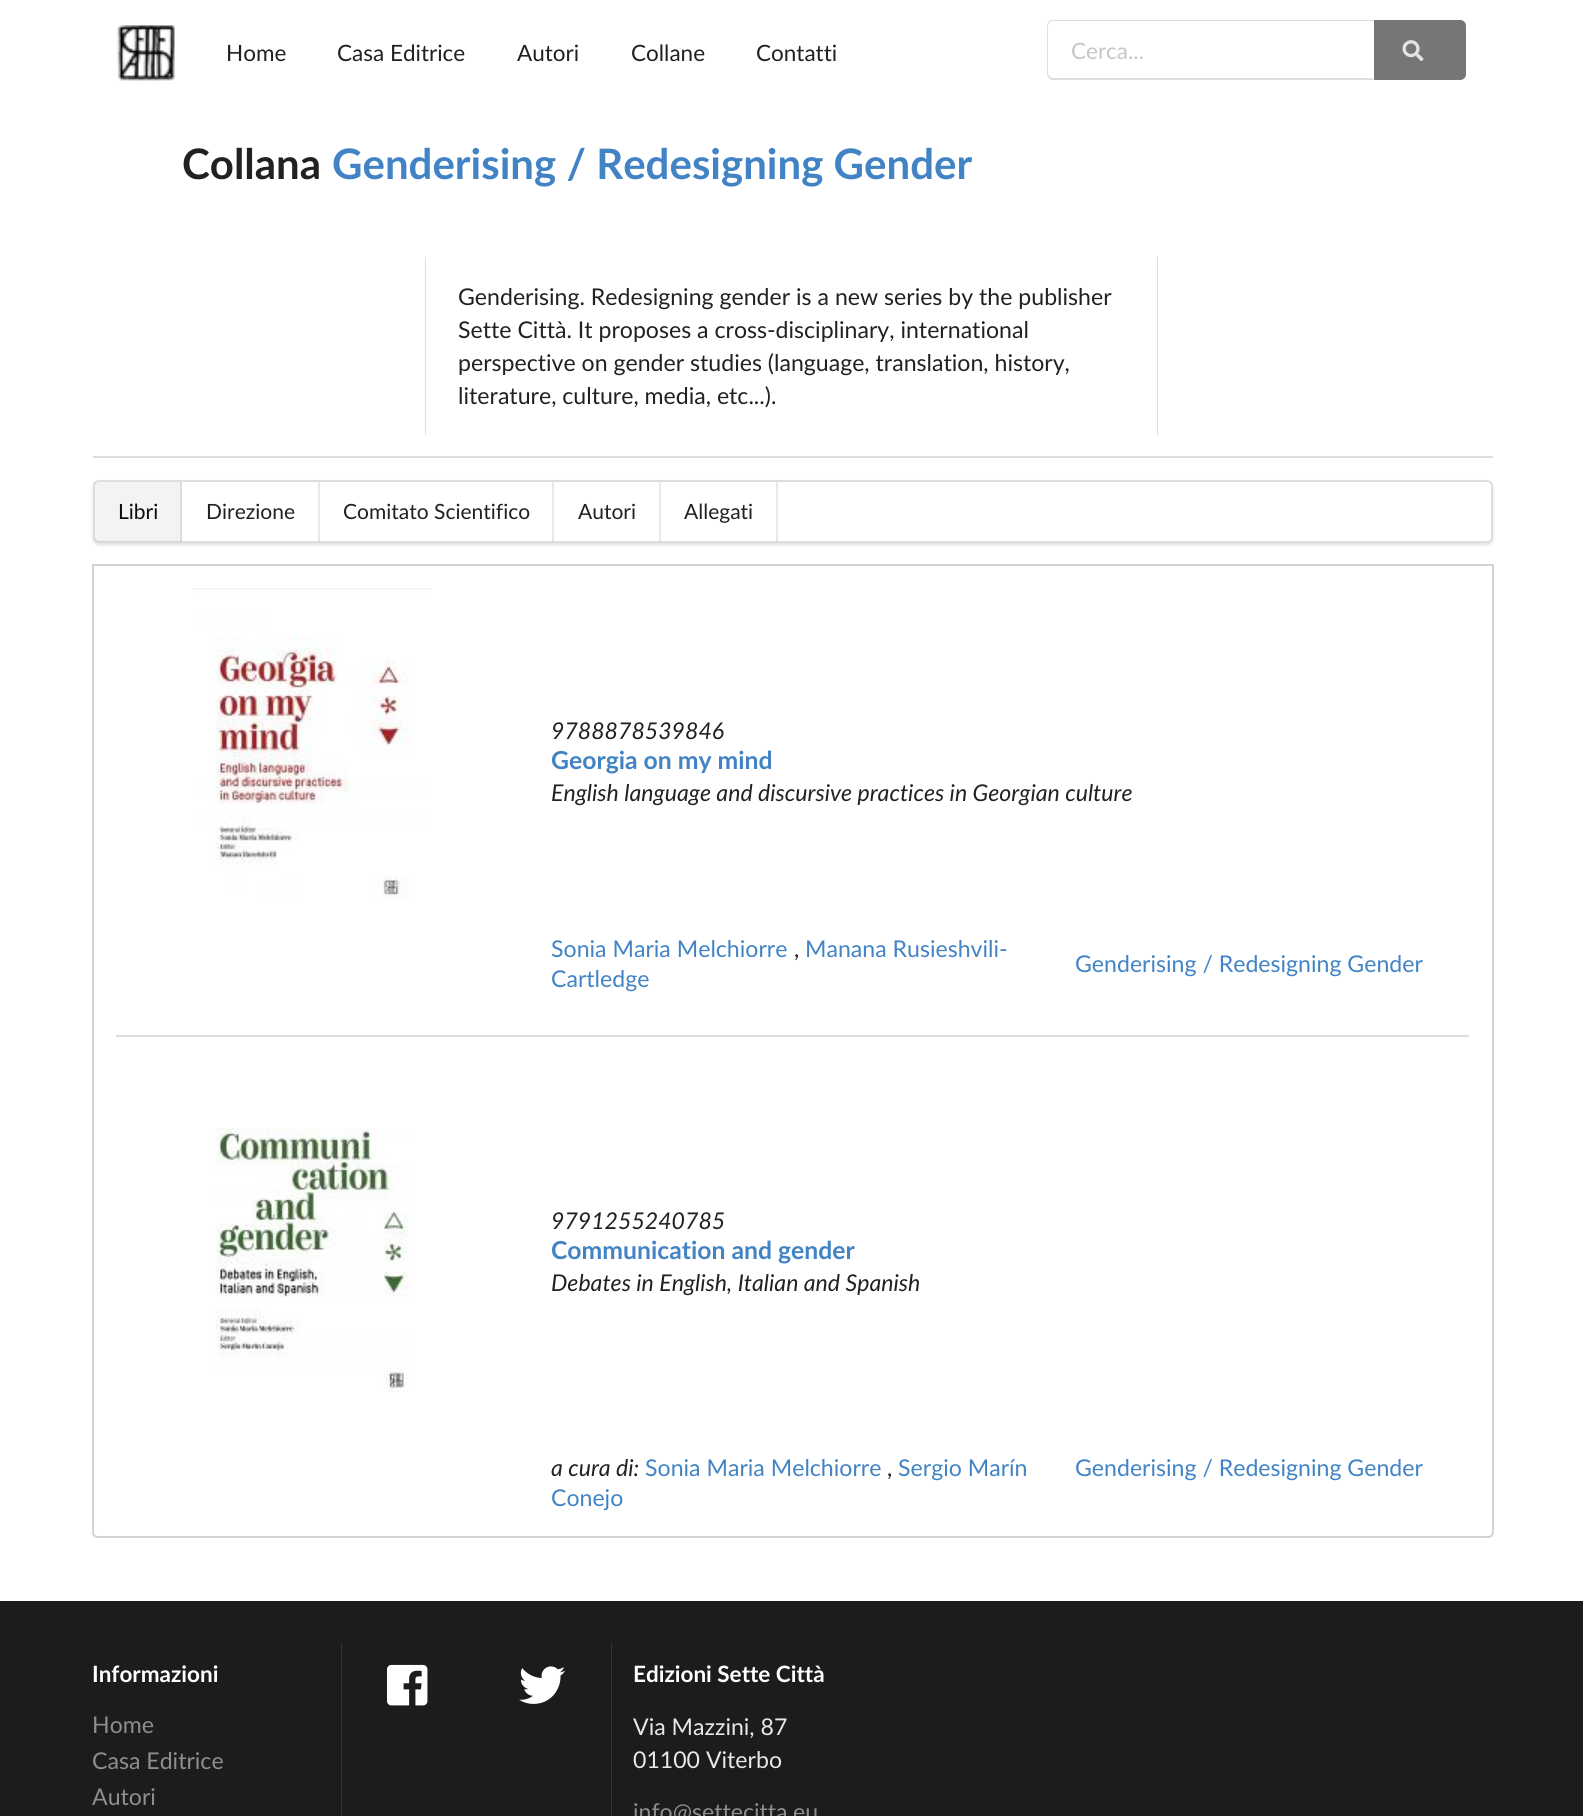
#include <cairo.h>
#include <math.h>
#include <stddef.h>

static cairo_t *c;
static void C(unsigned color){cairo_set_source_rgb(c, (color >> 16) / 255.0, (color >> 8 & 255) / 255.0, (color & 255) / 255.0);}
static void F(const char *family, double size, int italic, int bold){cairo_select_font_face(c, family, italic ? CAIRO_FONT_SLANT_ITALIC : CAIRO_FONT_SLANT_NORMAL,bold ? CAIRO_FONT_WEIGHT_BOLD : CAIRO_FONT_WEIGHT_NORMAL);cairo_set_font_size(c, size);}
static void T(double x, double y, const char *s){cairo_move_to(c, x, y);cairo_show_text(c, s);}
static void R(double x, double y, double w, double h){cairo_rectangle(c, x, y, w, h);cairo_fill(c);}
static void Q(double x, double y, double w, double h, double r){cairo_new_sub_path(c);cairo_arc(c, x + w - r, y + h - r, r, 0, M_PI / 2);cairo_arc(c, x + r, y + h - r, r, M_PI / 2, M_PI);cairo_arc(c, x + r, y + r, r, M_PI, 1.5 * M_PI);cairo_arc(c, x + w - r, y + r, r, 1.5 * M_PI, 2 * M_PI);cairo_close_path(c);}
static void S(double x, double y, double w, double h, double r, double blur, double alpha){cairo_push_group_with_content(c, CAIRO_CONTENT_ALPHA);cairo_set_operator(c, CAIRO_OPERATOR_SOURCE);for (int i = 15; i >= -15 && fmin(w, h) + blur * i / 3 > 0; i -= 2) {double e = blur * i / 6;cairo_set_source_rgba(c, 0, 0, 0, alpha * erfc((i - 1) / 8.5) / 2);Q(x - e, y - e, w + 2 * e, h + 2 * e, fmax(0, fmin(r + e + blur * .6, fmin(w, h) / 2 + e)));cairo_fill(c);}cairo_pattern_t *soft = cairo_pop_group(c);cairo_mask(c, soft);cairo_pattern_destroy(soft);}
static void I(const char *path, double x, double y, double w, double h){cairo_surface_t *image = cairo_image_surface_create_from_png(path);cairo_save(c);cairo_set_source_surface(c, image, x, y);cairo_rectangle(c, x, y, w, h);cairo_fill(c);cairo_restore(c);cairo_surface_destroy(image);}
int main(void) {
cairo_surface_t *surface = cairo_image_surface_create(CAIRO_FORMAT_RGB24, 1583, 1816);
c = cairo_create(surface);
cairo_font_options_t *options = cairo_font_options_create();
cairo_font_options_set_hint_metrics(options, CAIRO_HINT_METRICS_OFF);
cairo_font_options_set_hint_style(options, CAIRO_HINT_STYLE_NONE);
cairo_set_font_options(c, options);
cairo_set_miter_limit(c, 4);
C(0xffffff);
cairo_paint(c);
I("1.png",117,25,58,56);
F("Lato",22.5,0,0);
C(0x212121);
T(226,61,"Home");
T(337,61,"Casa Editrice");
T(517,61,"Autori");
T(631,61,"Collane");
T(756,61,"Contatti");
C(0xdedede);
cairo_new_path(c);
cairo_move_to(c,1053,20);
cairo_curve_to(c,1052,20,1050,20,1049,21);
cairo_line_to(c,1050,22);
cairo_line_to(c,1053,21);
cairo_line_to(c,1372,21);
cairo_line_to(c,1372,22);
cairo_line_to(c,1374,20);
cairo_close_path(c);
cairo_fill(c);
cairo_new_path(c);
cairo_move_to(c,1374,80);
cairo_line_to(c,1051,80);
cairo_line_to(c,1049,78);
cairo_line_to(c,1050,77);
cairo_line_to(c,1053,78);
cairo_line_to(c,1372,78);
cairo_close_path(c);
cairo_fill(c);
cairo_set_source_rgba(c,0.133,0.141,0.149,0.15);
cairo_new_path(c);
cairo_move_to(c,1047,26);
cairo_line_to(c,1047,74);
cairo_curve_to(c,1047,75,1048,77,1049,78);
cairo_line_to(c,1050,77);
cairo_line_to(c,1048,74);
cairo_line_to(c,1048,25);
cairo_line_to(c,1050,22);
cairo_line_to(c,1049,21);
cairo_curve_to(c,1048,22,1047,24,1047,26);
cairo_close_path(c);
cairo_fill(c);
C(0xc7c7c7);
T(1071,59,"Cerca...");
C(0x767676);
cairo_new_path(c);
cairo_move_to(c,1374,20);
cairo_line_to(c,1460,20);
cairo_curve_to(c,1463.5,20,1466,22.5,1466,26);
cairo_line_to(c,1466,74);
cairo_curve_to(c,1466,77.5,1463.5,80,1460,80);
cairo_line_to(c,1374,80);
cairo_close_path(c);
cairo_fill(c);
I("2.png",1402,40,22,22);
F("Lato",42,0,1);
C(0x212121);
T(182,179,"Collana");
C(0x4183c4);
T(332,179,"Genderising / Redesigning Gender");
C(0xdedede);
R(425,257,1,178);
F("Lato",23.1,0,0);
C(0x212121);
T(458,305,"Genderising. Redesigning gender is a new series by the publisher");
T(458,338,"Sette Città. It proposes a cross-disciplinary, international");
T(458,371,"perspective on gender studies (language, translation, history,");
T(458,404,"literature, culture, media, etc...).");
C(0xdedede);
R(1157,257,1,178);
R(93,456,1400,2);
C(0x222426);
S(93,482,1400,63,6,1.5,.15);
C(0xffffff);
Q(93,480,1400,63,6);
cairo_fill(c);
Q(94,481,1398,61,5);
cairo_set_source_rgba(c,0.133,0.141,0.149,0.15);
cairo_stroke(c);
cairo_set_source_rgba(c,0,0,0,0.05);
R(95,482,87,60);
F("Lato",21,0,0);
C(0x0c0c0c);
T(118,519,"Libri");
cairo_set_source_rgba(c,0.133,0.141,0.149,0.1);
R(180,482,2,60);
C(0x212121);
T(206,519,"Direzione");
cairo_set_source_rgba(c,0.133,0.141,0.149,0.1);
R(318,482,2,60);
C(0x212121);
T(343,519,"Comitato Scientifico");
cairo_set_source_rgba(c,0.133,0.141,0.149,0.1);
R(552,482,2,60);
C(0x212121);
T(578,519,"Autori");
cairo_set_source_rgba(c,0.133,0.141,0.149,0.1);
R(659,482,2,60);
C(0x212121);
T(684,519,"Allegati");
cairo_set_source_rgba(c,0.133,0.141,0.149,0.1);
R(776,482,2,60);
cairo_new_path(c);
cairo_move_to(c,93,565);
cairo_line_to(c,1493,565);
cairo_line_to(c,1493,1532);
cairo_curve_to(c,1493,1535,1491,1537,1488,1537);
cairo_line_to(c,98,1537);
cairo_curve_to(c,95,1537,93,1535,93,1532);
cairo_close_path(c);
C(0xd4d4d5);
cairo_stroke(c);
I("3.png",192,588,240,312);
F("Lato",23.1,1,0);
C(0x212121);
T(551,739,"9788878539846");
F("Lato",24.75,0,1);
C(0x4183c4);
T(551,769,"Georgia on my mind");
F("Lato",23.1,1,0);
C(0x212121);
T(551,801,"English language and discursive practices in Georgian culture");
F("Lato",23.1,0,0);
C(0x4183c4);
T(551,957,"Sonia Maria Melchiorre");
C(0x212121);
T(794,957,",");
C(0x4183c4);
T(805,957,"Manana Rusieshvili-");
T(551,987,"Cartledge");
T(1075,972,"Genderising / Redesigning Gender");
C(0xdedede);
R(116,1035,1353,2);
I("4.png",215,1128,194,264);
F("Lato",23.1,1,0);
C(0x212121);
T(551,1229,"9791255240785");
F("Lato",24.75,0,1);
C(0x4183c4);
T(551,1259,"Communication and gender");
F("Lato",23.1,1,0);
C(0x212121);
T(551,1291,"Debates in English, Italian and Spanish");
T(551,1476,"a cura di:");
F("Lato",23.1,0,0);
C(0x4183c4);
T(645,1476,"Sonia Maria Melchiorre");
C(0x212121);
T(887,1476,",");
C(0x4183c4);
T(898,1476,"Sergio Marín");
T(551,1506,"Conejo");
T(1075,1476,"Genderising / Redesigning Gender");
C(0x1b1c1d);
R(0,1601,1583,215);
F("Lato",22.5,0,1);
C(0xffffff);
T(92,1682,"Informazioni");
F("Lato",23.1,0,0);
C(0x8d8e8e);
T(92,1733,"Home");
T(92,1769,"Casa Editrice");
T(92,1805,"Autori");
C(0x323334);
cairo_new_path(c);
cairo_move_to(c,341,1643);
cairo_line_to(c,341,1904);
cairo_line_to(c,611,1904);
cairo_line_to(c,342,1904);
cairo_line_to(c,342,1643);
cairo_close_path(c);
cairo_fill(c);
I("5.png",387,1664,41,42);
I("6.png",519,1666,46,38);
cairo_new_path(c);
cairo_move_to(c,611,1643);
cairo_line_to(c,611,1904);
cairo_line_to(c,1241,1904);
cairo_line_to(c,612,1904);
cairo_line_to(c,612,1643);
cairo_close_path(c);
cairo_fill(c);
F("Lato",22.5,0,1);
C(0xffffff);
T(633,1682,"Edizioni Sette Città");
F("Lato",23.1,0,0);
C(0xe8e8e8);
T(633,1735,"Via Mazzini, 87");
T(633,1768,"01100 Viterbo");
C(0x8d8e8e);
T(633,1820,"info@settecitta.eu");
cairo_surface_write_to_png(surface, "o.png");
cairo_font_options_destroy(options);
cairo_destroy(c);
cairo_surface_destroy(surface);
return 0;
}
